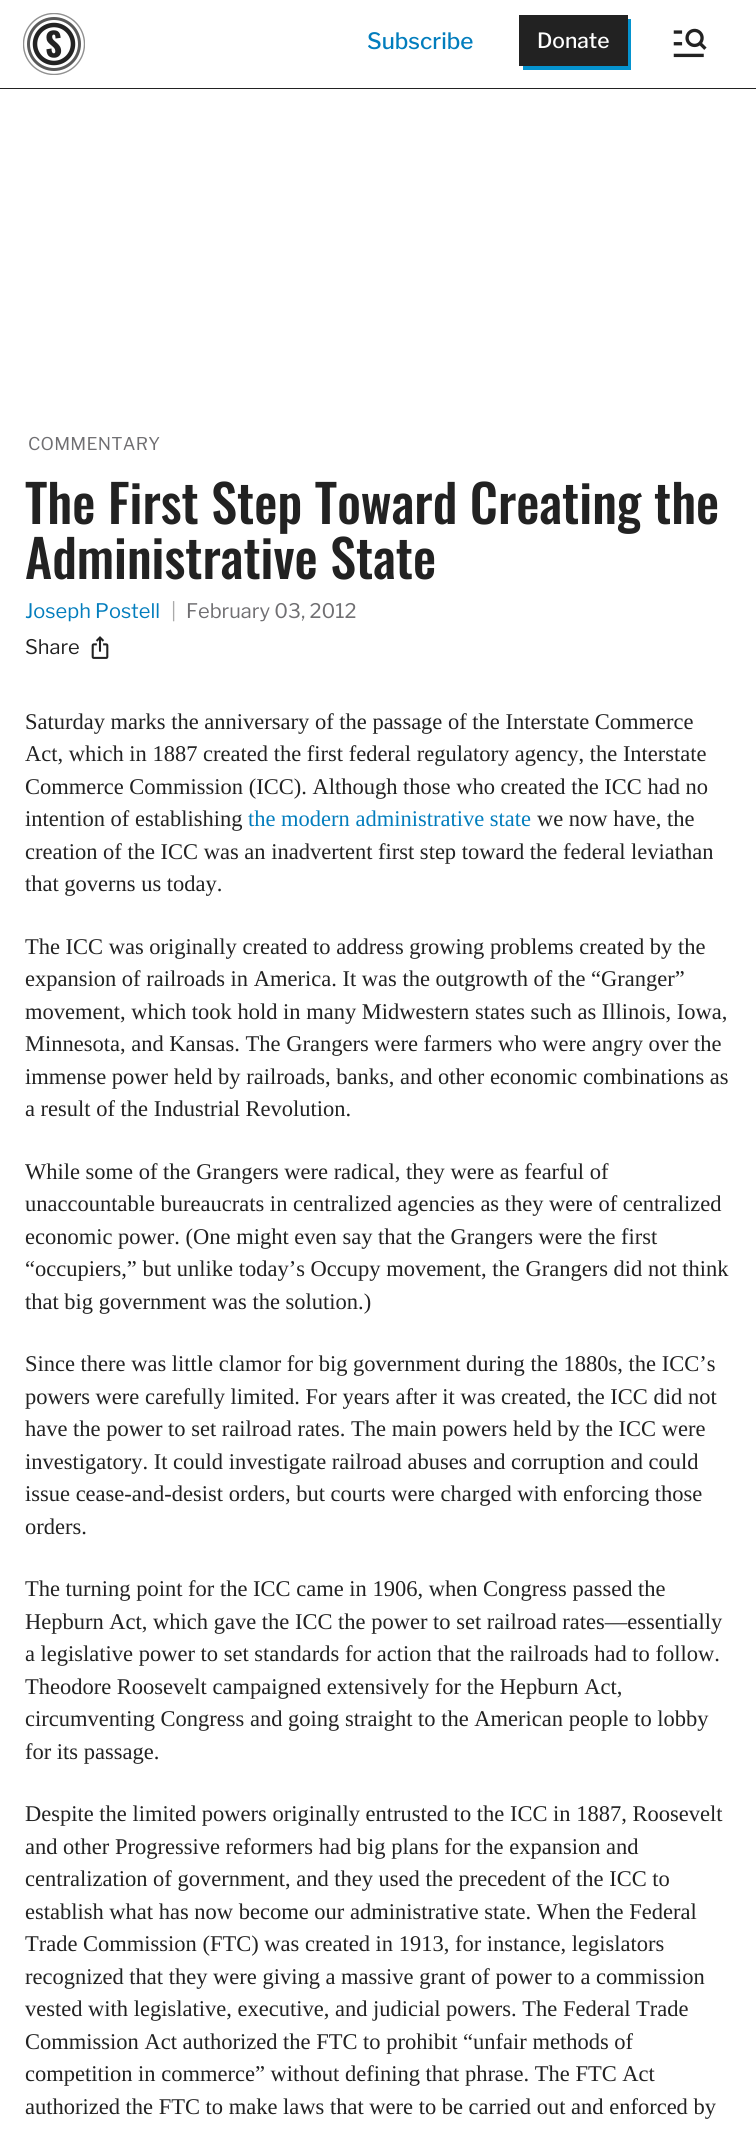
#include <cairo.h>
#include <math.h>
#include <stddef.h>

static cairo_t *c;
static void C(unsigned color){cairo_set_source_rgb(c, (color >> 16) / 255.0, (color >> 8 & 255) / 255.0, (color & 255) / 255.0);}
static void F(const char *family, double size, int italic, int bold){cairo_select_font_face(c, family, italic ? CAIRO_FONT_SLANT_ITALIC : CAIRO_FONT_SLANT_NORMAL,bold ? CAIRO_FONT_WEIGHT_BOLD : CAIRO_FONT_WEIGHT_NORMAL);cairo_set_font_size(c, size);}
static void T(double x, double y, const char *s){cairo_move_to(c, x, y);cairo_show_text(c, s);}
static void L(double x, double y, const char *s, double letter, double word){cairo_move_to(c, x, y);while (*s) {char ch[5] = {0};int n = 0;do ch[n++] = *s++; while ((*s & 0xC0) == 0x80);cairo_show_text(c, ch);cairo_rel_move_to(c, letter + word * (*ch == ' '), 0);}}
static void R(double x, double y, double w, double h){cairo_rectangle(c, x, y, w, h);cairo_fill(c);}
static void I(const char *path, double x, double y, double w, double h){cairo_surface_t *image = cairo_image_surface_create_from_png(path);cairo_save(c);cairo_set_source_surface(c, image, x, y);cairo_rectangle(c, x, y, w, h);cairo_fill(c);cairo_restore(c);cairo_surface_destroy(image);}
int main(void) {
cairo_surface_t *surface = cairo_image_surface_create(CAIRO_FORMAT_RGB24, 756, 2132);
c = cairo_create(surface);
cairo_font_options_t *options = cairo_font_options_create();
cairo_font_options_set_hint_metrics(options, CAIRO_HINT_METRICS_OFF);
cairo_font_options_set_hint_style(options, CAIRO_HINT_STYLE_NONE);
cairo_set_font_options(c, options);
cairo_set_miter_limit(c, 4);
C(0xffffff);
cairo_paint(c);
C(0x222222);
R(0,88,756,1);
I("1.png",23,13,62,62);
F("Libre Franklin Medium",22.5,0,0);
C(0x027dbd);
T(367,49,"Subscribe");
C(0x0593cf);
cairo_new_path(c);
cairo_move_to(c,523,66);
cairo_line_to(c,523,70);
cairo_line_to(c,631,70);
cairo_line_to(c,631,19);
cairo_line_to(c,628,19);
cairo_line_to(c,628,66);
cairo_close_path(c);
cairo_fill(c);
C(0x222222);
R(519,15,109,51);
F("Libre Franklin Medium",21,0,0);
C(0xffffff);
T(537,48,"Donate");
I("2.png",673,28,34,30);
F("Libre Franklin",17.5,0,0);
C(0x706f72);
L(28,450,"COMMENTARY",.25,0);
F("Oswald Medium",52,0,0);
C(0x222222);
T(25,524,"The First Step Toward Creating the");
T(25,579,"Administrative State");
F("Libre Franklin",20,0,0);
C(0x027dbd);
T(25,618,"Joseph Postell");
C(0xaaaaaa);
T(171,618,"|");
C(0x706f72);
T(186,618,"February 03, 2012");
C(0x222222);
T(25,654,"Share");
I("3.png",91,636,18,23);
F("Liberation Serif",22.5,0,0);
T(25,729,"Saturday marks the anniversary of the passage of the Interstate Commerce");
T(25,761,"Act, which in 1887 created the first federal regulatory agency, the Interstate");
T(25,794,"Commerce Commission (ICC). Although those who created the ICC had no");
T(25,826,"intention of establishing");
C(0x027dbd);
T(248,826,"the modern administrative state");
C(0x222222);
T(537,826,"we now have, the");
T(25,859,"creation of the ICC was an inadvertent first step toward the federal leviathan");
T(25,891,"that governs us today.");
T(25,954,"The ICC was originally created to address growing problems created by the");
T(25,986,"expansion of railroads in America. It was the outgrowth of the “Granger”");
T(25,1019,"movement, which took hold in many Midwestern states such as Illinois, Iowa,");
T(25,1051,"Minnesota, and Kansas. The Grangers were farmers who were angry over the");
T(25,1084,"immense power held by railroads, banks, and other economic combinations as");
T(25,1116,"a result of the Industrial Revolution.");
T(25,1179,"While some of the Grangers were radical, they were as fearful of");
T(25,1211,"unaccountable bureaucrats in centralized agencies as they were of centralized");
T(25,1244,"economic power. (One might even say that the Grangers were the first");
T(25,1276,"“occupiers,” but unlike today’s Occupy movement, the Grangers did not think");
T(25,1309,"that big government was the solution.)");
T(25,1371,"Since there was little clamor for big government during the 1880s, the ICC’s");
T(25,1404,"powers were carefully limited. For years after it was created, the ICC did not");
T(25,1436,"have the power to set railroad rates. The main powers held by the ICC were");
T(25,1469,"investigatory. It could investigate railroad abuses and corruption and could");
T(25,1501,"issue cease-and-desist orders, but courts were charged with enforcing those");
T(25,1534,"orders.");
T(25,1596,"The turning point for the ICC came in 1906, when Congress passed the");
T(25,1629,"Hepburn Act, which gave the ICC the power to set railroad rates—essentially");
T(25,1661,"a legislative power to set standards for action that the railroads had to follow.");
T(25,1694,"Theodore Roosevelt campaigned extensively for the Hepburn Act,");
T(25,1726,"circumventing Congress and going straight to the American people to lobby");
T(25,1759,"for its passage.");
T(25,1821,"Despite the limited powers originally entrusted to the ICC in 1887, Roosevelt");
T(25,1854,"and other Progressive reformers had big plans for the expansion and");
T(25,1886,"centralization of government, and they used the precedent of the ICC to");
T(25,1919,"establish what has now become our administrative state. When the Federal");
T(25,1951,"Trade Commission (FTC) was created in 1913, for instance, legislators");
T(25,1984,"recognized that they were giving a massive grant of power to a commission");
T(25,2016,"vested with legislative, executive, and judicial powers. The Federal Trade");
T(25,2049,"Commission Act authorized the FTC to prohibit “unfair methods of");
T(25,2081,"competition in commerce” without defining that phrase. The FTC Act");
T(25,2114,"authorized the FTC to make laws that were to be carried out and enforced by");
cairo_surface_write_to_png(surface, "o.png");
cairo_font_options_destroy(options);
cairo_destroy(c);
cairo_surface_destroy(surface);
return 0;
}
